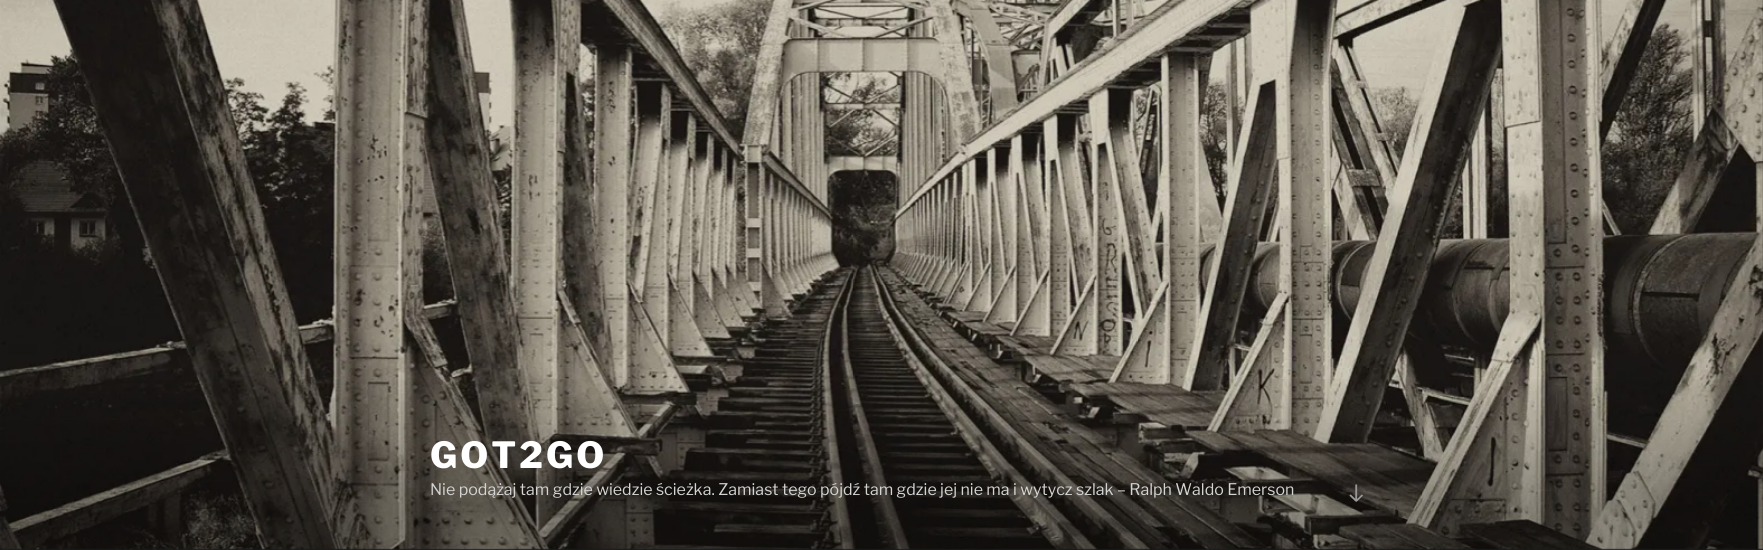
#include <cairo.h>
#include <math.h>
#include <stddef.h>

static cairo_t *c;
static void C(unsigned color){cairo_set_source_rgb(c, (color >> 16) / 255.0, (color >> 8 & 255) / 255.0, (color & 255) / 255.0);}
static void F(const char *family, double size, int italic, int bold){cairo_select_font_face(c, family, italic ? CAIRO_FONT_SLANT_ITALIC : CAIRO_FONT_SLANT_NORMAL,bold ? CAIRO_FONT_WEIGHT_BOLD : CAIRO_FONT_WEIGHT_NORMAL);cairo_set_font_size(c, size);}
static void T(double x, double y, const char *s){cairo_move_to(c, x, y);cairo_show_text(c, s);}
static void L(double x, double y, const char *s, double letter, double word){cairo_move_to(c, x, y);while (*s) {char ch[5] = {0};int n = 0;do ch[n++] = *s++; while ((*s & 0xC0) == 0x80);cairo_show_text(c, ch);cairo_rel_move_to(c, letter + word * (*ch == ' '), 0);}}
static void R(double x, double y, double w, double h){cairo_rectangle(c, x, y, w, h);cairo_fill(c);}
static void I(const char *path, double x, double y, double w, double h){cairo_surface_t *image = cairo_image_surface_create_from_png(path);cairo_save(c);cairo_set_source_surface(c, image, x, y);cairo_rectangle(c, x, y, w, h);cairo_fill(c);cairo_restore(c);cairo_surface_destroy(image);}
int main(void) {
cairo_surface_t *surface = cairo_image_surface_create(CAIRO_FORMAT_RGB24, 1763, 550);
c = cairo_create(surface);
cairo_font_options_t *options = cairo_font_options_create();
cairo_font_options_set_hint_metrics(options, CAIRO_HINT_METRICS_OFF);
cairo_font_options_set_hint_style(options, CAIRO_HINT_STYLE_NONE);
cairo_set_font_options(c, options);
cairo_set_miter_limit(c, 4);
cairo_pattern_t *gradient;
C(0x262626);
cairo_paint(c);
I("1.png",0,0,1763,550);
gradient = cairo_pattern_create_linear(882,369,882,550);
cairo_pattern_add_color_stop_rgba(gradient,0,0,0,0,0);
cairo_pattern_add_color_stop_rgba(gradient,.75,0,0,0,.3);
cairo_pattern_add_color_stop_rgba(gradient,1,0,0,0,.3);
cairo_set_source(c,gradient);
cairo_pattern_destroy(gradient);
R(0,379,1763,171);
F("Libre Franklin Thin",36,0,0);
C(0xffffff);
L(430,468,"GOT2GO",3,0);
F("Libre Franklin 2 Thin",16,0,0);
C(0xd4d4d3);
T(430,495,"Nie podążaj tam gdzie wiedzie ścieżka. Zamiast tego pójdź tam gdzie jej nie ma i wytycz szlak – Ralph Waldo Emerson");
I("2.png",1349,484,14,18);
cairo_surface_write_to_png(surface, "o.png");
cairo_font_options_destroy(options);
cairo_destroy(c);
cairo_surface_destroy(surface);
return 0;
}
